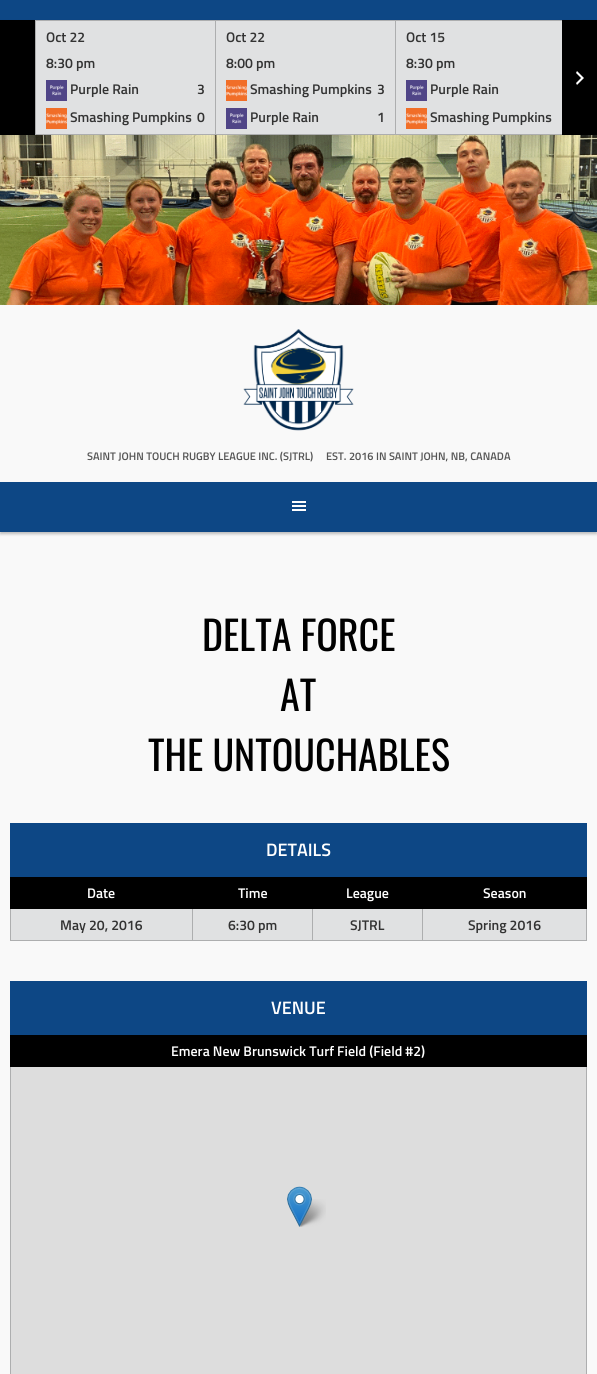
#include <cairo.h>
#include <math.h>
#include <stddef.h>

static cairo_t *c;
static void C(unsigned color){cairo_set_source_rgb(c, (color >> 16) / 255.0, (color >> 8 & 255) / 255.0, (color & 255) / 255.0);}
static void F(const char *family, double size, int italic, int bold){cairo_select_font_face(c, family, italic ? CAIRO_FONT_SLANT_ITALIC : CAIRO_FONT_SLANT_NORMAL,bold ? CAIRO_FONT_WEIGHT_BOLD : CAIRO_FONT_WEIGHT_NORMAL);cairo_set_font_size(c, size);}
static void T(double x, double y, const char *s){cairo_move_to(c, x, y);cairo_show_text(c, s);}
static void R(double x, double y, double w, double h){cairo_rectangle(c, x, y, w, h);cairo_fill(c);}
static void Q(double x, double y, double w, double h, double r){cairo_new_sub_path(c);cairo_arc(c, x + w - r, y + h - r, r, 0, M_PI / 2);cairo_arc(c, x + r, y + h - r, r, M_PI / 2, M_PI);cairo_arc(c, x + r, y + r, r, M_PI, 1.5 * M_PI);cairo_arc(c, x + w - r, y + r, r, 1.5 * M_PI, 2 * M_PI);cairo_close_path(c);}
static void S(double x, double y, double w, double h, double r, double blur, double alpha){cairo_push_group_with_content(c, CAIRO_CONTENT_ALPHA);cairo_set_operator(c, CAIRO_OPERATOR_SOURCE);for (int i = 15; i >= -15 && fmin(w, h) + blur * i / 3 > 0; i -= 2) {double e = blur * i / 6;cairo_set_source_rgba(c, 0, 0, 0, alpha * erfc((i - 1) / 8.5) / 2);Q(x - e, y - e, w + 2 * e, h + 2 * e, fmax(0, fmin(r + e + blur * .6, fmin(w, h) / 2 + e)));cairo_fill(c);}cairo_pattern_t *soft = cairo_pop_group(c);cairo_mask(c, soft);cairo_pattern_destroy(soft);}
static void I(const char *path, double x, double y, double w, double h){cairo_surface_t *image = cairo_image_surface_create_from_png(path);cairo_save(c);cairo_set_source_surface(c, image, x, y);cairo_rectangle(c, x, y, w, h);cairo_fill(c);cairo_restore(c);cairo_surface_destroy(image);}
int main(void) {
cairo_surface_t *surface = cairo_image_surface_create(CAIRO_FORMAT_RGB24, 597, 1374);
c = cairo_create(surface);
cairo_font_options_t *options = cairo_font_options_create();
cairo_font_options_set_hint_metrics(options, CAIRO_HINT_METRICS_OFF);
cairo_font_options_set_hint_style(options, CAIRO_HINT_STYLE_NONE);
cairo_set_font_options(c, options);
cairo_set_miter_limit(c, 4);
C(0xf9f9f9);
cairo_paint(c);
C(0x0d4785);
R(0,0,597,20);
C(0x000000);
S(0,22,597,512,0,1.5,.25);
C(0xf9f9f9);
R(0,305,597,177);
C(0x000000);
R(0,20,597,115);
C(0xadaeaf);
R(35,20,527,1);
R(35,134,527,1);
R(35,20,1,115);
C(0xe0e1e2);
R(36,21,526,113);
F("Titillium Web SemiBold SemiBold",14,0,0);
C(0x333333);
T(46,42,"Oct 22");
T(46,68,"8:30 pm");
I("1.png",46,80,21,21);
T(70,94,"Purple Rain");
T(197,94,"3");
I("2.png",46,108,21,21);
T(70,122,"Smashing Pumpkins");
T(197,122,"0");
C(0xadaeaf);
R(215,20,1,115);
C(0x333333);
T(226,42,"Oct 22");
T(226,68,"8:00 pm");
I("3.png",226,80,21,21);
T(250,94,"Smashing Pumpkins");
T(377,94,"3");
I("4.png",226,108,21,21);
T(250,122,"Purple Rain");
T(377,122,"1");
C(0xadaeaf);
R(395,20,1,115);
C(0x333333);
T(406,42,"Oct 15");
T(406,68,"8:30 pm");
I("4.png",406,80,21,21);
T(430,94,"Purple Rain");
I("3.png",406,108,21,21);
T(430,122,"Smashing Pumpkins");
I("5.png",576,71,8,14);
I("6.png",0,135,597,170);
I("7.png",243,329,111,102);
F("Titillium Web SemiBold SemiBold",11,0,0);
C(0x555555);
T(87,460,"SAINT JOHN TOUCH RUGBY LEAGUE INC. (SJTRL)");
T(326,460,"EST. 2016 IN SAINT JOHN, NB, CANADA");
C(0x0d4785);
R(0,482,597,50);
I("8.png",292,501,14,10);
F("Oswald",40,0,0);
C(0x000000);
T(202,651,"DELTA FORCE");
T(280,711,"AT");
T(148,771,"THE UNTOUCHABLES");
R(10,908,577,1);
C(0xadaeaf);
R(10,940,577,1);
R(10,908,1,33);
C(0x000000);
R(10,876,1,33);
R(11,877,575,31);
C(0xe0e1e2);
R(11,909,575,31);
C(0xadaeaf);
R(192,908,1,33);
C(0x000000);
R(192,876,1,33);
C(0xadaeaf);
R(312,908,1,33);
C(0x000000);
R(312,876,1,33);
C(0xadaeaf);
R(586,908,1,33);
C(0x000000);
R(586,876,1,33);
C(0xadaeaf);
R(422,908,1,33);
C(0x000000);
R(422,876,1,33);
C(0x0d4785);
R(10,823,577,54);
F("Titillium Web SemiBold SemiBold",18,0,0);
C(0xffffff);
T(266,856,"DETAILS");
F("Titillium Web SemiBold SemiBold",14,0,0);
T(87,898,"Date");
T(238,898,"Time");
T(346,898,"League");
T(483,898,"Season");
C(0x333333);
T(60,930,"May 20, 2016");
T(228,930,"6:30 pm");
T(350,930,"SJTRL");
T(468,930,"Spring 2016");
C(0x000000);
R(10,1066,577,1);
C(0xadaeaf);
R(586,1066,1,308);
C(0x000000);
R(586,1034,1,33);
C(0xadaeaf);
R(10,1066,1,308);
C(0x000000);
R(10,1034,1,33);
C(0x0d4785);
R(10,981,577,54);
F("Titillium Web SemiBold SemiBold",18,0,0);
C(0xffffff);
T(271,1014,"VENUE");
C(0x000000);
R(11,1035,575,31);
F("Titillium Web SemiBold SemiBold",14,0,0);
C(0xffffff);
T(171,1056,"Emera New Brunswick Turf Field (Field #2)");
C(0xdddddd);
R(11,1067,575,307);
I("10.png",297,1199,29,28);
I("9.png",287,1186,25,41);
cairo_surface_write_to_png(surface, "o.png");
cairo_font_options_destroy(options);
cairo_destroy(c);
cairo_surface_destroy(surface);
return 0;
}
